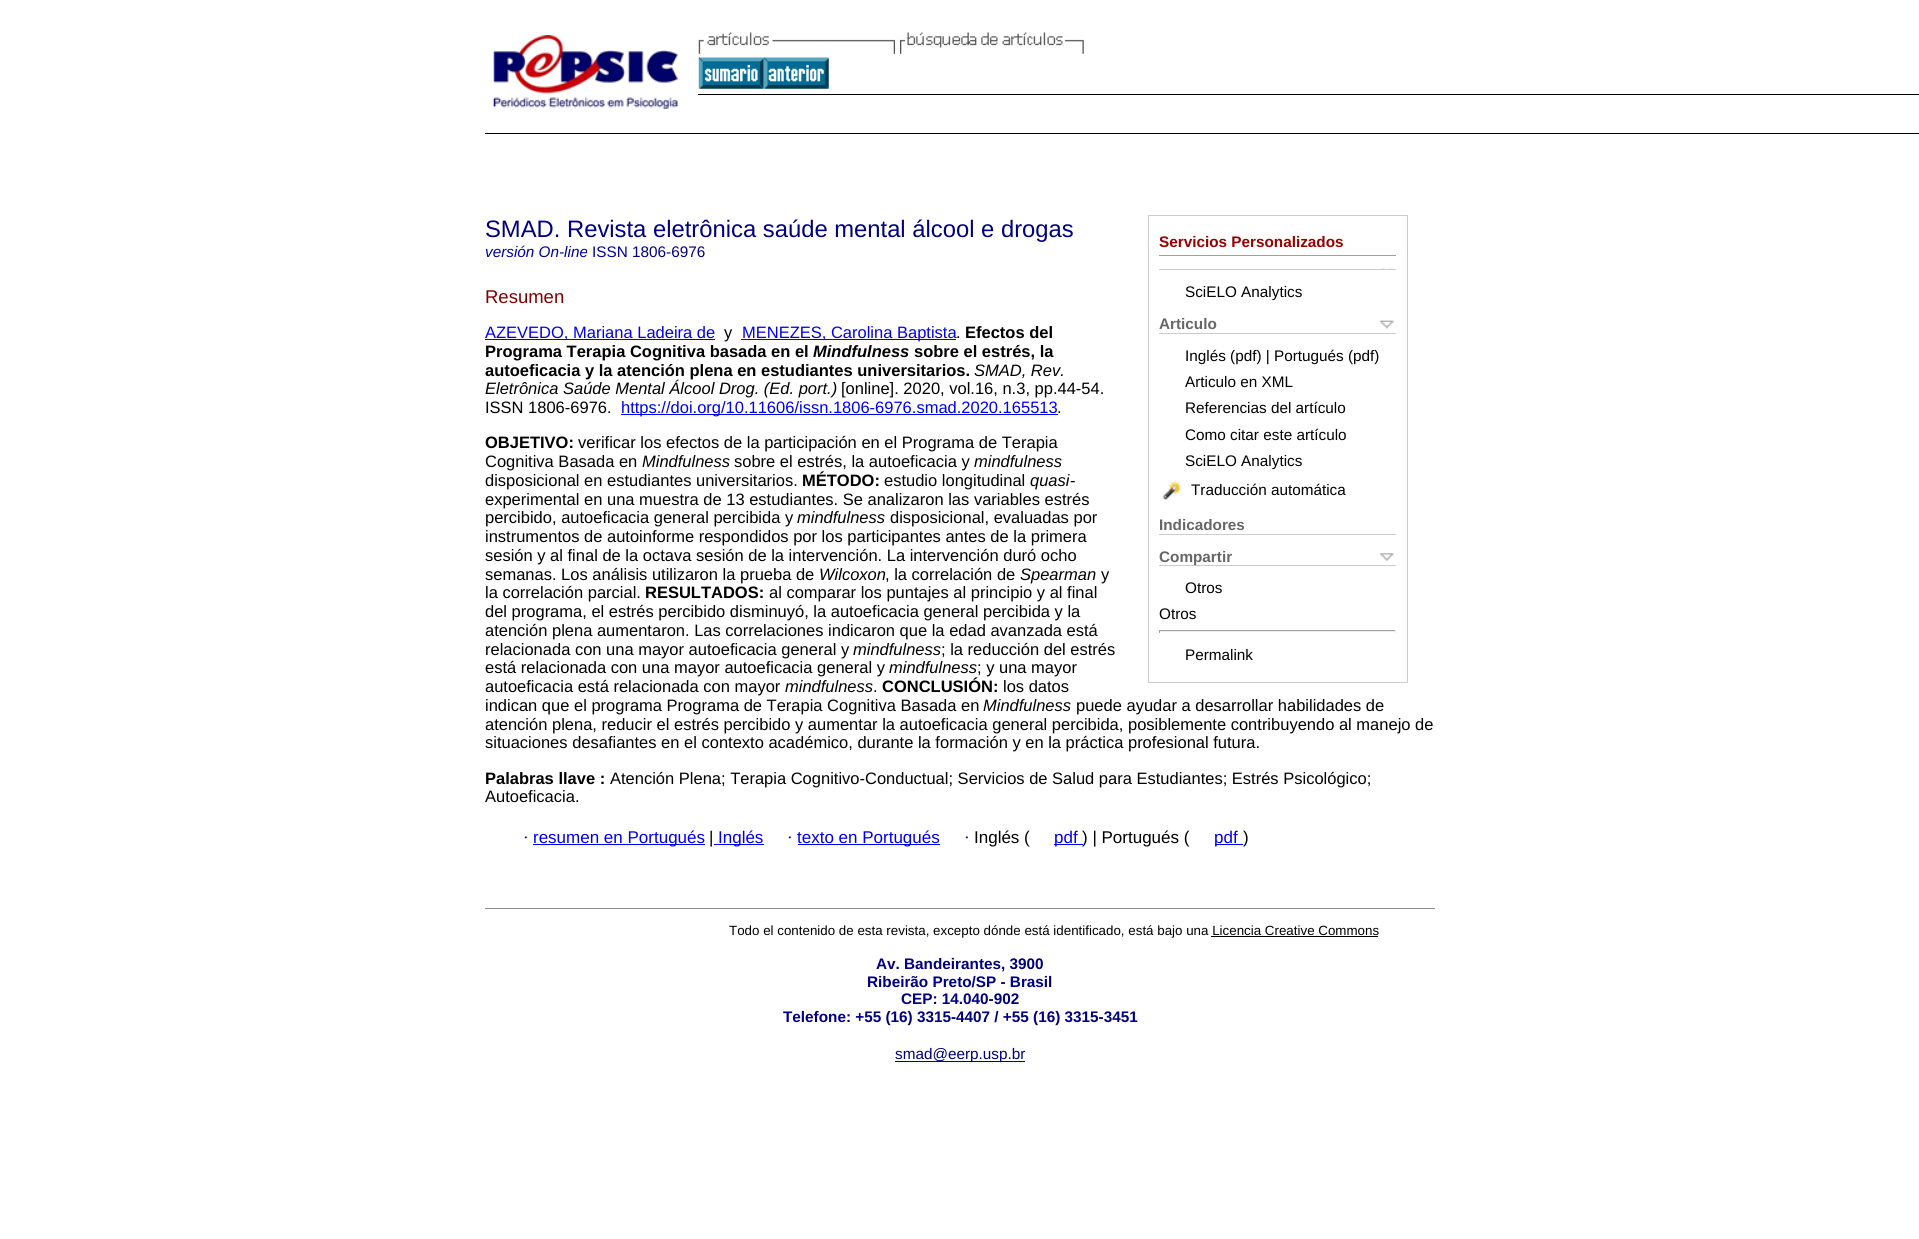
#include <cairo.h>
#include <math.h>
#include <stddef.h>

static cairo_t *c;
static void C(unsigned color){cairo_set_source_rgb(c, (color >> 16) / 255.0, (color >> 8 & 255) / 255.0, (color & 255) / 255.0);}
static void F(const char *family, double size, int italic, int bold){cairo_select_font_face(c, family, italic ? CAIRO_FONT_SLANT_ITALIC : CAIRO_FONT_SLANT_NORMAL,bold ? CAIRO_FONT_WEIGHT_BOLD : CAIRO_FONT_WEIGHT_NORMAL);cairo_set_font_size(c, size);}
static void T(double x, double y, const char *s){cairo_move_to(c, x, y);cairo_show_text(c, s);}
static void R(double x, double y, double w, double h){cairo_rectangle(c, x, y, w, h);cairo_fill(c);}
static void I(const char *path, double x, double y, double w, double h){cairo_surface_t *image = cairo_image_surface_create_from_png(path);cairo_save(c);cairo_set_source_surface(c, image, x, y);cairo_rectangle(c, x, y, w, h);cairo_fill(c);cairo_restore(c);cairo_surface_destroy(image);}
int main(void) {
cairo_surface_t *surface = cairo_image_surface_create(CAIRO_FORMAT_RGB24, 1919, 1239);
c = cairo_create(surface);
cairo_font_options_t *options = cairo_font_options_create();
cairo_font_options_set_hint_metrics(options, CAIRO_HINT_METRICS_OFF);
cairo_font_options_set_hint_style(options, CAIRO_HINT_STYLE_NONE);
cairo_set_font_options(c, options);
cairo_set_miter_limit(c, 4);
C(0xffffff);
cairo_paint(c);
C(0x000000);
R(485,133,1434,1);
I("1.png",493,35,185,74);
R(698,94,1221,1);
I("2.png",698,32,197,22);
I("3.png",900,32,184,22);
I("4.png",698,57,66,32);
I("5.png",763,57,66,32);
C(0x8d8d8d);
R(485,908,950,1);
F("Liberation Sans",23.8,0,0);
C(0x000080);
T(485,237,"SMAD. Revista eletrônica saúde mental álcool e drogas");
F("Liberation Sans",15.3,1,0);
C(0x0000a0);
T(485,257,"versión On-line");
F("Liberation Sans",15.3,0,0);
T(592,257,"ISSN");
C(0x000080);
T(632,257,"1806-6976");
cairo_rectangle(c,1148.5,215.5,259,467);
C(0xcccccc);
cairo_set_line_width(c,1);
cairo_stroke(c);
C(0xbe9595);
R(1159,255,237,1);
F("Liberation Sans",15.3,0,1);
C(0x990000);
T(1159,247,"Servicios Personalizados");
I("6.png",1381,268,11,1);
C(0xcccccc);
R(1159,269,237,1);
F("Liberation Sans",15.3,0,0);
C(0x000000);
T(1185,297,"SciELO Analytics");
I("7.png",1379,320,15,9);
C(0xcccccc);
R(1159,333,237,1);
F("Liberation Sans",15.3,0,1);
C(0x666666);
T(1159,329,"Articulo");
F("Liberation Sans",15.3,0,0);
C(0x000000);
T(1185,361,"Inglés (pdf) | Portugués (pdf)");
T(1185,387,"Articulo en XML");
T(1185,413,"Referencias del artículo");
T(1185,440,"Como citar este artículo");
T(1185,466,"SciELO Analytics");
I("8.png",1162,481,20,20);
T(1191,495,"Traducción automática");
C(0xcccccc);
R(1159,534,237,1);
F("Liberation Sans",15.3,0,1);
C(0x666666);
T(1159,530,"Indicadores");
I("9.png",1380,553,14,8);
C(0xcccccc);
R(1159,565,237,1);
C(0x666666);
T(1159,562,"Compartir");
F("Liberation Sans",15.3,0,0);
C(0x000000);
T(1185,593,"Otros");
T(1159,619,"Otros");
C(0x9f9f9f);
R(1159,630,237,1);
C(0xeeeeee);
R(1395,630,1,3);
R(1159,631,237,1);
C(0x9f9f9f);
R(1159,630,1,3);
C(0x000000);
T(1185,660,"Permalink");
F("Liberation Sans",18.5,0,0);
C(0x800000);
T(485,303,"Resumen");
C(0x0000ee);
R(485,339,230,1);
F("Liberation Sans",16.5,0,0);
T(485,338,"AZEVEDO, Mariana Ladeira de");
C(0x000000);
T(724,338,"y");
C(0x0000ee);
R(741,339,215,1);
T(742,338,"MENEZES, Carolina Baptista");
C(0x000000);
T(956,338,".");
F("Liberation Sans",16.5,0,1);
T(965,338,"Efectos del");
T(485,357,"Programa Terapia Cognitiva basada en el");
F("Liberation Sans",16.5,1,1);
T(813,357,"Mindfulness");
F("Liberation Sans",16.5,0,1);
T(914,357,"sobre el estrés, la");
T(485,376,"autoeficacia y la atención plena en estudiantes universitarios.");
F("Liberation Sans",16.5,1,0);
T(974,376,"SMAD, Rev.");
T(485,394,"Eletrônica Saúde Mental Álcool Drog. (Ed. port.)");
F("Liberation Sans",16.5,0,0);
T(841,394,"[online]. 2020, vol.16, n.3, pp.44-54.");
T(485,413,"ISSN 1806-6976.");
C(0x0000ee);
R(621,414,437,1);
T(621,413,"https://doi.org/10.11606/issn.1806-6976.smad.2020.165513");
C(0x000000);
T(1057,413,".");
F("Liberation Sans",16.5,0,1);
T(485,448,"OBJETIVO:");
F("Liberation Sans",16.5,0,0);
T(578,448,"verificar los efectos de la participación en el Programa de Terapia");
T(485,467,"Cognitiva Basada en");
F("Liberation Sans",16.5,1,0);
T(642,467,"Mindfulness");
F("Liberation Sans",16.5,0,0);
T(734,467,"sobre el estrés, la autoeficacia y");
F("Liberation Sans",16.5,1,0);
T(974,467,"mindfulness");
F("Liberation Sans",16.5,0,0);
T(485,486,"disposicional en estudiantes universitarios.");
F("Liberation Sans",16.5,0,1);
T(802,486,"MÉTODO:");
F("Liberation Sans",16.5,0,0);
T(884,486,"estudio longitudinal");
F("Liberation Sans",16.5,1,0);
T(1030,486,"quasi");
F("Liberation Sans",16.5,0,0);
T(1070,486,"-");
T(485,505,"experimental en una muestra de 13 estudiantes. Se analizaron las variables estrés");
T(485,523,"percibido, autoeficacia general percibida y");
F("Liberation Sans",16.5,1,0);
T(797,523,"mindfulness");
F("Liberation Sans",16.5,0,0);
T(890,523,"disposicional, evaluadas por");
T(485,542,"instrumentos de autoinforme respondidos por los participantes antes de la primera");
T(485,561,"sesión y al final de la octava sesión de la intervención. La intervención duró ocho");
T(485,580,"semanas. Los análisis utilizaron la prueba de");
F("Liberation Sans",16.5,1,0);
T(819,580,"Wilcoxon");
F("Liberation Sans",16.5,0,0);
T(885,580,", la correlación de");
F("Liberation Sans",16.5,1,0);
T(1020,580,"Spearman");
F("Liberation Sans",16.5,0,0);
T(1101,580,"y");
T(485,598,"la correlación parcial.");
F("Liberation Sans",16.5,0,1);
T(645,598,"RESULTADOS:");
F("Liberation Sans",16.5,0,0);
T(769,598,"al comparar los puntajes al principio y al final");
T(485,617,"del programa, el estrés percibido disminuyó, la autoeficacia general percibida y la");
T(485,636,"atención plena aumentaron. Las correlaciones indicaron que la edad avanzada está");
T(485,655,"relacionada con una mayor autoeficacia general y");
F("Liberation Sans",16.5,1,0);
T(853,655,"mindfulness");
F("Liberation Sans",16.5,0,0);
T(941,655,"; la reducción del estrés");
T(485,673,"está relacionada con una mayor autoeficacia general y");
F("Liberation Sans",16.5,1,0);
T(889,673,"mindfulness");
F("Liberation Sans",16.5,0,0);
T(977,673,"; y una mayor");
T(485,692,"autoeficacia está relacionada con mayor");
F("Liberation Sans",16.5,1,0);
T(785,692,"mindfulness");
F("Liberation Sans",16.5,0,0);
T(873,692,".");
F("Liberation Sans",16.5,0,1);
T(882,692,"CONCLUSIÓN:");
F("Liberation Sans",16.5,0,0);
T(1003,692,"los datos");
T(485,711,"indican que el programa Programa de Terapia Cognitiva Basada en");
F("Liberation Sans",16.5,1,0);
T(983,711,"Mindfulness");
F("Liberation Sans",16.5,0,0);
T(1076,711,"puede ayudar a desarrollar habilidades de");
T(485,730,"atención plena, reducir el estrés percibido y aumentar la autoeficacia general percibida, posiblemente contribuyendo al manejo de");
T(485,748,"situaciones desafiantes en el contexto académico, durante la formación y en la práctica profesional futura.");
F("Liberation Sans",16.5,0,1);
T(485,784,"Palabras llave :");
F("Liberation Sans",16.5,0,0);
T(610,784,"Atención Plena; Terapia Cognitivo-Conductual; Servicios de Salud para Estudiantes; Estrés Psicológico;");
T(485,802,"Autoeficacia.");
F("Liberation Serif",17,0,0);
C(0x000080);
T(523,843,"·");
C(0x0000ee);
R(533,844,172,1);
F("Liberation Sans",17,0,0);
T(533,843,"resumen en Portugués");
C(0x000000);
T(709,843,"|");
C(0x0000ee);
R(714,844,50,1);
T(718,843,"Inglés");
F("Liberation Serif",17,0,0);
C(0x000080);
T(787,843,"·");
C(0x0000ee);
R(798,844,142,1);
F("Liberation Sans",17,0,0);
T(797,843,"texto en Portugués");
F("Liberation Serif",17,0,0);
C(0x000080);
T(964,843,"·");
F("Liberation Sans",17,0,0);
C(0x000000);
T(974,843,"Inglés (");
C(0x0000ee);
R(1054,844,29,1);
T(1054,843,"pdf");
C(0x000000);
T(1082,843,") | Portugués (");
C(0x0000ee);
R(1215,844,28,1);
T(1214,843,"pdf");
C(0x000000);
T(1243,843,")");
F("Liberation Sans",13.35,0,0);
T(729,935,"Todo el contenido de esta revista, excepto dónde está identificado, está bajo una Licencia Creative Commons");
R(1211,936,167,1);
F("Liberation Sans",15.3,0,1);
C(0x000080);
T(876,969,"Av. Bandeirantes, 3900");
T(867,987,"Ribeirão Preto/SP - Brasil");
T(901,1004,"CEP: 14.040-902");
T(783,1022,"Telefone: +55 (16) 3315-4407 / +55 (16) 3315-3451");
R(895,1061,130,1);
F("Liberation Sans",15.3,0,0);
T(895,1059,"smad@eerp.usp.br");
cairo_surface_write_to_png(surface, "o.png");
cairo_font_options_destroy(options);
cairo_destroy(c);
cairo_surface_destroy(surface);
return 0;
}
